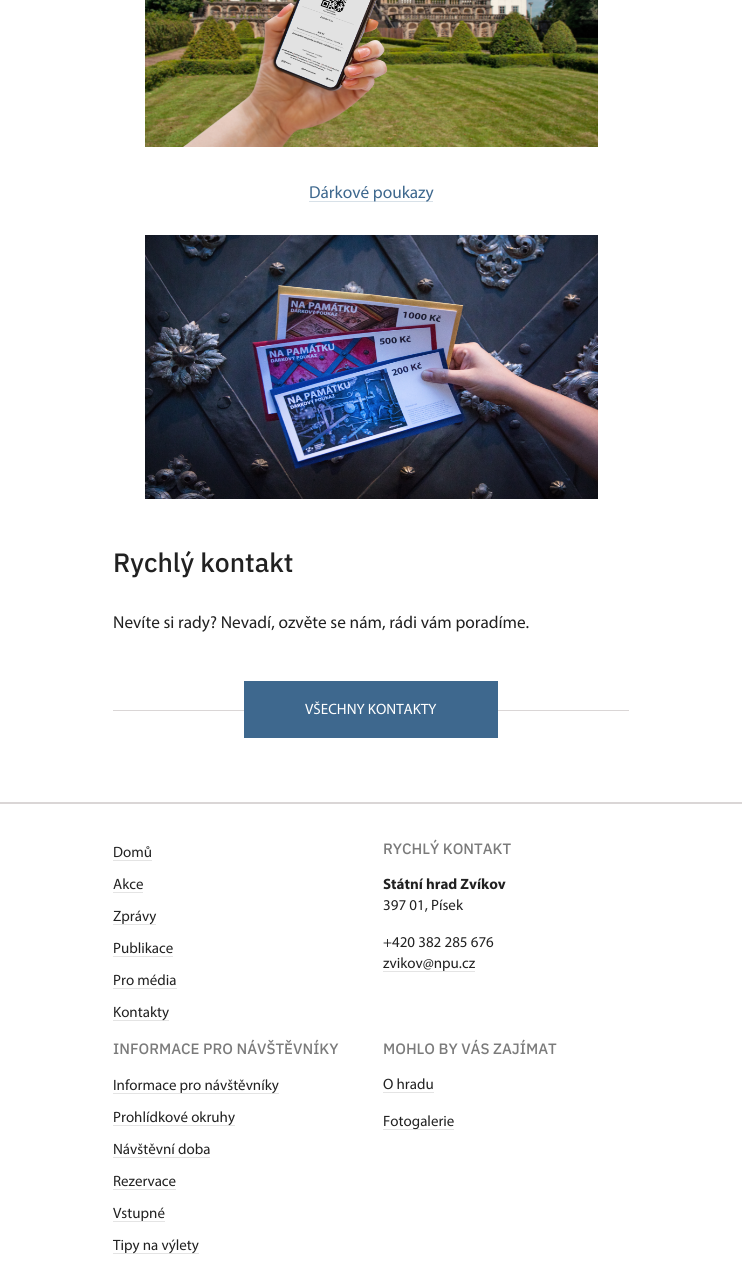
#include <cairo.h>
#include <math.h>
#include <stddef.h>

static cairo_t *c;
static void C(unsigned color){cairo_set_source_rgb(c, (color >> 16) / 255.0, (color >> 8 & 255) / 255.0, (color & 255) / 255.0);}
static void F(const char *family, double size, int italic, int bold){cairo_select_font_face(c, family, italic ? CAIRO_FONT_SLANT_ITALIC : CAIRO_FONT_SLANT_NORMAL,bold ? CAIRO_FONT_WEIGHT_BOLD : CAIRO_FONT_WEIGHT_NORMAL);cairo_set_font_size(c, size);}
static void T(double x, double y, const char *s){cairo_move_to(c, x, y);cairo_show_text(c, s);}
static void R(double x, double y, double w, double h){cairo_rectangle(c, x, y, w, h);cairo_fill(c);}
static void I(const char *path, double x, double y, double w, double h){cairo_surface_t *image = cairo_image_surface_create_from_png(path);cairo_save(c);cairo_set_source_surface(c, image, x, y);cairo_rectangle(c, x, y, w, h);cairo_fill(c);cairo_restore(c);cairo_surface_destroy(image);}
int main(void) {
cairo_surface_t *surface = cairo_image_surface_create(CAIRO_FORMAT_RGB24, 742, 1275);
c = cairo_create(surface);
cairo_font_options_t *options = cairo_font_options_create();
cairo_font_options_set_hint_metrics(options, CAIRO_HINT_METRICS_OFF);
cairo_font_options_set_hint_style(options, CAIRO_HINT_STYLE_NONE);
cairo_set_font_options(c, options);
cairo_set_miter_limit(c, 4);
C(0xffffff);
cairo_paint(c);
I("1.png",145,0,453,147);
C(0xd8e1e8);
R(309,201,124,1);
F("Myriad",17.3,0,0);
C(0x3e688e);
T(309,198,"Dárkové poukazy");
I("2.png",145,235,453,264);
F("IBM Plex Sans Medium",26.5,0,0);
C(0x212121);
T(113,572,"Rychlý kontakt");
F("Myriad",17.3,0,0);
T(113,628,"Nevíte si rady? Nevadí, ozvěte se nám, rádi vám poradíme.");
C(0xdad6d6);
R(113,710,516,1);
C(0x3e688e);
R(244,681,254,57);
F("Myriad",15,0,0);
C(0xffffff);
T(305,714,"VŠECHNY KONTAKTY");
C(0xdad6d6);
R(0,802,742,2);
C(0x212121);
T(113,857,"Domů");
C(0xe4e4e4);
R(113,860,39,1);
C(0x212121);
T(113,889,"Akce");
C(0xe4e4e4);
R(113,892,30,1);
R(113,924,43,1);
C(0x212121);
T(113,921,"Zprávy");
T(113,953,"Publikace");
C(0xe4e4e4);
R(113,956,60,1);
C(0x212121);
T(113,985,"Pro média");
C(0xe4e4e4);
R(113,988,64,1);
R(113,1020,56,1);
C(0x212121);
T(113,1017,"Kontakty");
F("IBM Plex Sans Medium",15,0,0);
C(0x7b7b7b);
T(383,854,"RYCHLÝ KONTAKT");
F("Myriad",15,0,1);
C(0x212121);
T(383,889,"Státní hrad Zvíkov");
F("Myriad",15,0,0);
T(383,910,"397 01, Písek");
T(383,947,"+420 382 285 676");
T(383,968,"zvikov@npu.cz");
C(0xe4e4e4);
R(383,971,92,1);
F("IBM Plex Sans Medium",15,0,0);
C(0x7b7b7b);
T(113,1054,"INFORMACE PRO NÁVŠTĚVNÍKY");
C(0xe4e4e4);
R(113,1093,166,1);
F("Myriad",15,0,0);
C(0x212121);
T(113,1090,"Informace pro návštěvníky");
C(0xe4e4e4);
R(113,1125,122,1);
C(0x212121);
T(113,1122,"Prohlídkové okruhy");
T(113,1154,"Návštěvní doba");
C(0xe4e4e4);
R(113,1157,97,1);
C(0x212121);
T(113,1186,"Rezervace");
C(0xe4e4e4);
R(113,1189,63,1);
C(0x212121);
T(113,1218,"Vstupné");
C(0xe4e4e4);
R(113,1221,52,1);
R(113,1253,86,1);
C(0x212121);
T(113,1250,"Tipy na výlety");
F("IBM Plex Sans Medium",15,0,0);
C(0x7b7b7b);
T(383,1054,"MOHLO BY VÁS ZAJÍMAT");
F("Myriad",15,0,0);
C(0x212121);
T(383,1089,"O hradu");
C(0xe4e4e4);
R(383,1092,51,1);
R(383,1129,71,1);
C(0x212121);
T(383,1126,"Fotogalerie");
cairo_surface_write_to_png(surface, "o.png");
cairo_font_options_destroy(options);
cairo_destroy(c);
cairo_surface_destroy(surface);
return 0;
}
